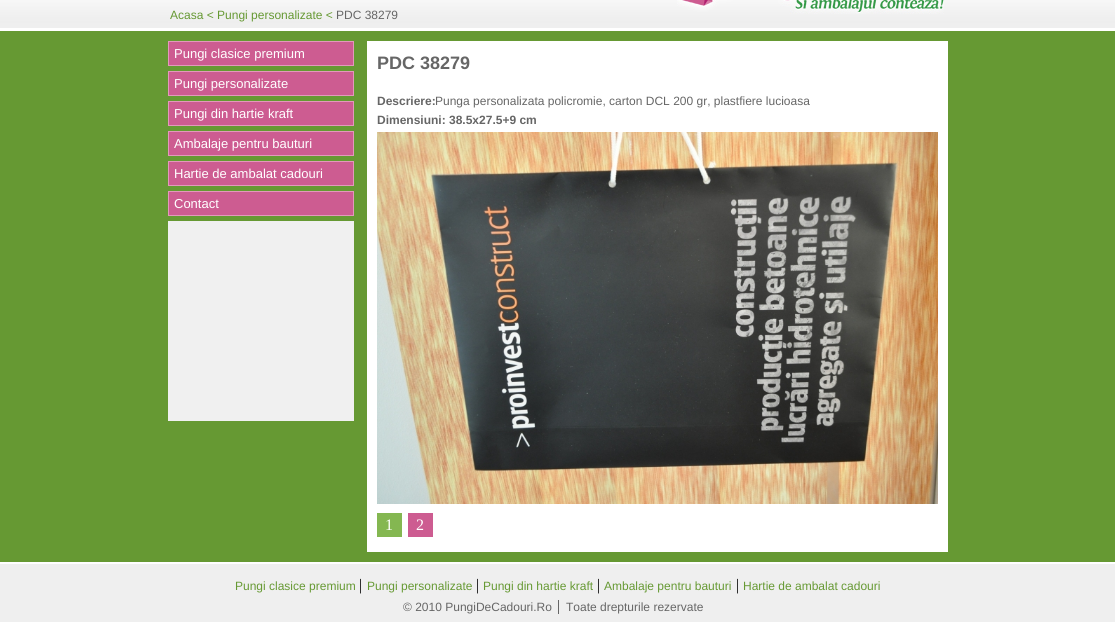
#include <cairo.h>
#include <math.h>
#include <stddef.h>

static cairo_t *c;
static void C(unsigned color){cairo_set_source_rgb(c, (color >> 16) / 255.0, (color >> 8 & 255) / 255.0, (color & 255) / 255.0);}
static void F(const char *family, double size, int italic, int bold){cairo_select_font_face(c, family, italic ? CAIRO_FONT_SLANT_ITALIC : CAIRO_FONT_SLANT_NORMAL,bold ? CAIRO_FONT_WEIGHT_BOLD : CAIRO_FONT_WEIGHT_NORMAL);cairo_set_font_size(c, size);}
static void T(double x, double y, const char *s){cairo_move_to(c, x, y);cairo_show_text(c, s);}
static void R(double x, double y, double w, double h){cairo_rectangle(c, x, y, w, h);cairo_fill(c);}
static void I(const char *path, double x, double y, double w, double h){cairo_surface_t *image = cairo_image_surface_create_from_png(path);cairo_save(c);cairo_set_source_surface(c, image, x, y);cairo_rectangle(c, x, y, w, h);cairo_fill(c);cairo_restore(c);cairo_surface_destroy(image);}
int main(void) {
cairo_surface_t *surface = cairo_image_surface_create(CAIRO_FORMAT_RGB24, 1115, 622);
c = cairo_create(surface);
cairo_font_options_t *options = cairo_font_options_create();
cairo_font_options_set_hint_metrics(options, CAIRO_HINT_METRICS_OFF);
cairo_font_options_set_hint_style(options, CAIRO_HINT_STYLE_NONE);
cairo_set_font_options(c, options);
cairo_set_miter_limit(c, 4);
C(0xffffff);
cairo_paint(c);
I("1.png",0,0,1115,28);
I("2.png",677,0,267,14);
F("Liberation Sans",12,0,0);
C(0x669933);
T(170,19,"Acasa < Pungi personalizate <");
C(0x666666);
T(336,19,"PDC 38279");
C(0x669933);
R(0,31,1115,531);
C(0xcd5c91);
cairo_rectangle(c,168.5,41.5,185,24);
cairo_fill_preserve(c);
C(0xe498bc);
cairo_set_line_width(c,1);
cairo_stroke(c);
F("Liberation Sans",13,0,0);
C(0xffffff);
T(174,58,"Pungi clasice premium");
C(0xcd5c91);
cairo_rectangle(c,168.5,71.5,185,24);
cairo_fill_preserve(c);
C(0xe498bc);
cairo_stroke(c);
C(0xffffff);
T(174,88,"Pungi personalizate");
C(0xcd5c91);
cairo_rectangle(c,168.5,101.5,185,24);
cairo_fill_preserve(c);
C(0xe498bc);
cairo_stroke(c);
C(0xffffff);
T(174,118,"Pungi din hartie kraft");
C(0xcd5c91);
cairo_rectangle(c,168.5,131.5,185,24);
cairo_fill_preserve(c);
C(0xe498bc);
cairo_stroke(c);
C(0xffffff);
T(174,148,"Ambalaje pentru bauturi");
C(0xcd5c91);
cairo_rectangle(c,168.5,161.5,185,24);
cairo_fill_preserve(c);
C(0xe498bc);
cairo_stroke(c);
C(0xffffff);
T(174,178,"Hartie de ambalat cadouri");
C(0xcd5c91);
cairo_rectangle(c,168.5,191.5,185,24);
cairo_fill_preserve(c);
C(0xe498bc);
cairo_stroke(c);
C(0xffffff);
T(174,208,"Contact");
C(0xf0f0f0);
R(168,221,186,200);
C(0xffffff);
R(367,41,581,511);
F("Liberation Sans",18,0,1);
C(0x666666);
T(377,69,"PDC 38279");
F("Liberation Sans",12,0,1);
T(377,105,"Descriere:");
F("Liberation Sans",12,0,0);
T(435,105,"Punga personalizata policromie, carton DCL 200 gr, plastfiere lucioasa");
F("Liberation Sans",12,0,1);
T(377,124,"Dimensiuni: 38.5x27.5+9 cm");
I("3.png",377,132,561,372);
C(0x84b751);
R(377,513,25,24);
F("Liberation Serif",16,0,0);
C(0xffffff);
T(385,530,"1");
C(0xcd5c91);
R(408,513,25,24);
C(0xffffff);
T(416,530,"2");
C(0xefefef);
R(0,564,1115,58);
F("Liberation Sans",12,0,0);
C(0x669933);
T(235,590,"Pungi clasice premium");
F("Liberation Serif",16,0,0);
C(0x000000);
T(359,590,"|");
F("Liberation Sans",12,0,0);
C(0x669933);
T(367,590,"Pungi personalizate");
F("Liberation Serif",16,0,0);
C(0x000000);
T(476,590,"|");
F("Liberation Sans",12,0,0);
C(0x669933);
T(483,590,"Pungi din hartie kraft");
F("Liberation Serif",16,0,0);
C(0x000000);
T(597,590,"|");
F("Liberation Sans",12,0,0);
C(0x669933);
T(604,590,"Ambalaje pentru bauturi");
F("Liberation Serif",16,0,0);
C(0x000000);
T(736,590,"|");
F("Liberation Sans",12,0,0);
C(0x669933);
T(743,590,"Hartie de ambalat cadouri");
C(0x666666);
R(558,600,1,14);
T(403,611,"© 2010 PungiDeCadouri.Ro");
T(566,611,"Toate drepturile rezervate");
cairo_surface_write_to_png(surface, "o.png");
cairo_font_options_destroy(options);
cairo_destroy(c);
cairo_surface_destroy(surface);
return 0;
}
